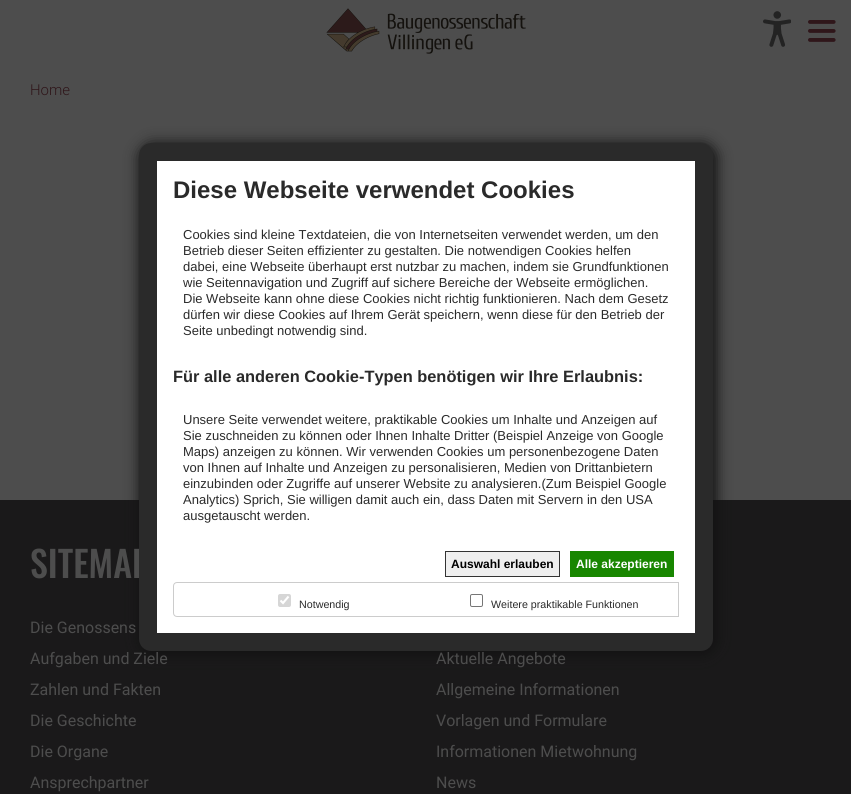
#include <cairo.h>
#include <math.h>
#include <stddef.h>

static cairo_t *c;
static void C(unsigned color){cairo_set_source_rgb(c, (color >> 16) / 255.0, (color >> 8 & 255) / 255.0, (color & 255) / 255.0);}
static void F(const char *family, double size, int italic, int bold){cairo_select_font_face(c, family, italic ? CAIRO_FONT_SLANT_ITALIC : CAIRO_FONT_SLANT_NORMAL,bold ? CAIRO_FONT_WEIGHT_BOLD : CAIRO_FONT_WEIGHT_NORMAL);cairo_set_font_size(c, size);}
static void T(double x, double y, const char *s){cairo_move_to(c, x, y);cairo_show_text(c, s);}
static void R(double x, double y, double w, double h){cairo_rectangle(c, x, y, w, h);cairo_fill(c);}
static void Q(double x, double y, double w, double h, double r){cairo_new_sub_path(c);cairo_arc(c, x + w - r, y + h - r, r, 0, M_PI / 2);cairo_arc(c, x + r, y + h - r, r, M_PI / 2, M_PI);cairo_arc(c, x + r, y + r, r, M_PI, 1.5 * M_PI);cairo_arc(c, x + w - r, y + r, r, 1.5 * M_PI, 2 * M_PI);cairo_close_path(c);}
static void S(double x, double y, double w, double h, double r, double blur, double alpha){cairo_push_group_with_content(c, CAIRO_CONTENT_ALPHA);cairo_set_operator(c, CAIRO_OPERATOR_SOURCE);for (int i = 15; i >= -15 && fmin(w, h) + blur * i / 3 > 0; i -= 2) {double e = blur * i / 6;cairo_set_source_rgba(c, 0, 0, 0, alpha * erfc((i - 1) / 8.5) / 2);Q(x - e, y - e, w + 2 * e, h + 2 * e, fmax(0, fmin(r + e + blur * .6, fmin(w, h) / 2 + e)));cairo_fill(c);}cairo_pattern_t *soft = cairo_pop_group(c);cairo_mask(c, soft);cairo_pattern_destroy(soft);}
static void I(const char *path, double x, double y, double w, double h){cairo_surface_t *image = cairo_image_surface_create_from_png(path);cairo_save(c);cairo_set_source_surface(c, image, x, y);cairo_rectangle(c, x, y, w, h);cairo_fill(c);cairo_restore(c);cairo_surface_destroy(image);}
int main(void) {
cairo_surface_t *surface = cairo_image_surface_create(CAIRO_FORMAT_RGB24, 851, 794);
c = cairo_create(surface);
cairo_font_options_t *options = cairo_font_options_create();
cairo_font_options_set_hint_metrics(options, CAIRO_HINT_METRICS_OFF);
cairo_font_options_set_hint_style(options, CAIRO_HINT_STYLE_NONE);
cairo_set_font_options(c, options);
cairo_set_miter_limit(c, 4);
C(0x4d4d4d);
cairo_paint(c);
I("1.png",326,8,200,46);
I("2.png",763,11,28,36);
I("3.png",808,20,28,22);
F("Roboto Light",15,0,0);
C(0x2f161a);
T(30,95,"Home");
C(0x1a191a);
R(0,500,851,294);
C(0x121212);
S(139,143,578,512,14,7,1);
F("Oswald Medium",36,0,0);
C(0x4d4d4d);
T(30,578,"SITEMAP");
Q(148,152,556,490,3);
C(0x2a2a2a);
cairo_set_line_width(c,18);
cairo_stroke(c);
C(0xffffff);
R(157,161,538,472);
F("Liberation Sans",24,0,1);
C(0x2a2a2a);
T(173,198,"Diese Webseite verwendet Cookies");
F("Liberation Sans",13,0,0);
T(183,239,"Cookies sind kleine Textdateien, die von Internetseiten verwendet werden, um den");
T(183,255,"Betrieb dieser Seiten effizienter zu gestalten. Die notwendigen Cookies helfen");
T(183,271,"dabei, eine Webseite überhaupt erst nutzbar zu machen, indem sie Grundfunktionen");
T(183,287,"wie Seitennavigation und Zugriff auf sichere Bereiche der Webseite ermöglichen.");
T(183,303,"Die Webseite kann ohne diese Cookies nicht richtig funktionieren. Nach dem Gesetz");
T(183,319,"dürfen wir diese Cookies auf Ihrem Gerät speichern, wenn diese für den Betrieb der");
T(183,335,"Seite unbedingt notwendig sind.");
F("Liberation Sans",16.4,0,1);
T(173,382,"Für alle anderen Cookie-Typen benötigen wir Ihre Erlaubnis:");
F("Liberation Sans",13,0,0);
T(183,424,"Unsere Seite verwendet weitere, praktikable Cookies um Inhalte und Anzeigen auf");
T(183,440,"Sie zuschneiden zu können oder Ihnen Inhalte Dritter (Beispiel Anzeige von Google");
T(183,456,"Maps) anzeigen zu können. Wir verwenden Cookies um personenbezogene Daten");
T(183,472,"von Ihnen auf Inhalte und Anzeigen zu personalisieren, Medien von Drittanbietern");
T(183,488,"einzubinden oder Zugriffe auf unserer Website zu analysieren.(Zum Beispiel Google");
T(183,504,"Analytics) Sprich, Sie willigen damit auch ein, dass Daten mit Servern in den USA");
T(183,520,"ausgetauscht werden.");
C(0xefefef);
cairo_rectangle(c,445.5,551.5,114,25);
cairo_fill_preserve(c);
C(0x333333);
cairo_set_line_width(c,1);
cairo_stroke(c);
F("Liberation Sans",12,0,1);
C(0x000000);
T(451,568,"Auswahl erlauben");
C(0x188600);
R(570,551,104,26);
C(0xffffff);
T(576,568,"Alle akzeptieren");
cairo_new_path(c);
cairo_move_to(c,177,582.5);
cairo_line_to(c,678.5,582.5);
cairo_line_to(c,678.5,616.5);
cairo_line_to(c,177,616.5);
cairo_curve_to(c,175,616.5,173.5,615,173.5,613);
cairo_line_to(c,173.5,586);
cairo_curve_to(c,173.5,584,175,582.5,177,582.5);
cairo_close_path(c);
C(0xcccccc);
cairo_stroke(c);
C(0xd6d6d6);
Q(278,594,13,13,2);
cairo_fill(c);
cairo_new_path(c);
cairo_move_to(c,280.5,600.5);
cairo_line_to(c,283,603);
cairo_line_to(c,288.5,596.5);
C(0xffffff);
cairo_set_line_width(c,2.1);
cairo_stroke(c);
F("Liberation Sans",10.7,0,0);
C(0x2a2a2a);
T(299,608,"Notwendig");
Q(470.5,594.5,12,12,1.5);
C(0x767676);
cairo_set_line_width(c,1);
cairo_stroke(c);
C(0x2a2a2a);
T(491,608,"Weitere praktikable Funktionen");
F("Roboto",16,0,0);
C(0x4d4d4d);
T(30,633,"Die Genossens");
T(30,664,"Aufgaben und Ziele");
T(30,695,"Zahlen und Fakten");
T(30,726,"Die Geschichte");
T(30,757,"Die Organe");
T(30,788,"Ansprechpartner");
T(436,664,"Aktuelle Angebote");
T(436,695,"Allgemeine Informationen");
T(436,726,"Vorlagen und Formulare");
T(436,757,"Informationen Mietwohnung");
T(436,788,"News");
cairo_surface_write_to_png(surface, "o.png");
cairo_font_options_destroy(options);
cairo_destroy(c);
cairo_surface_destroy(surface);
return 0;
}
